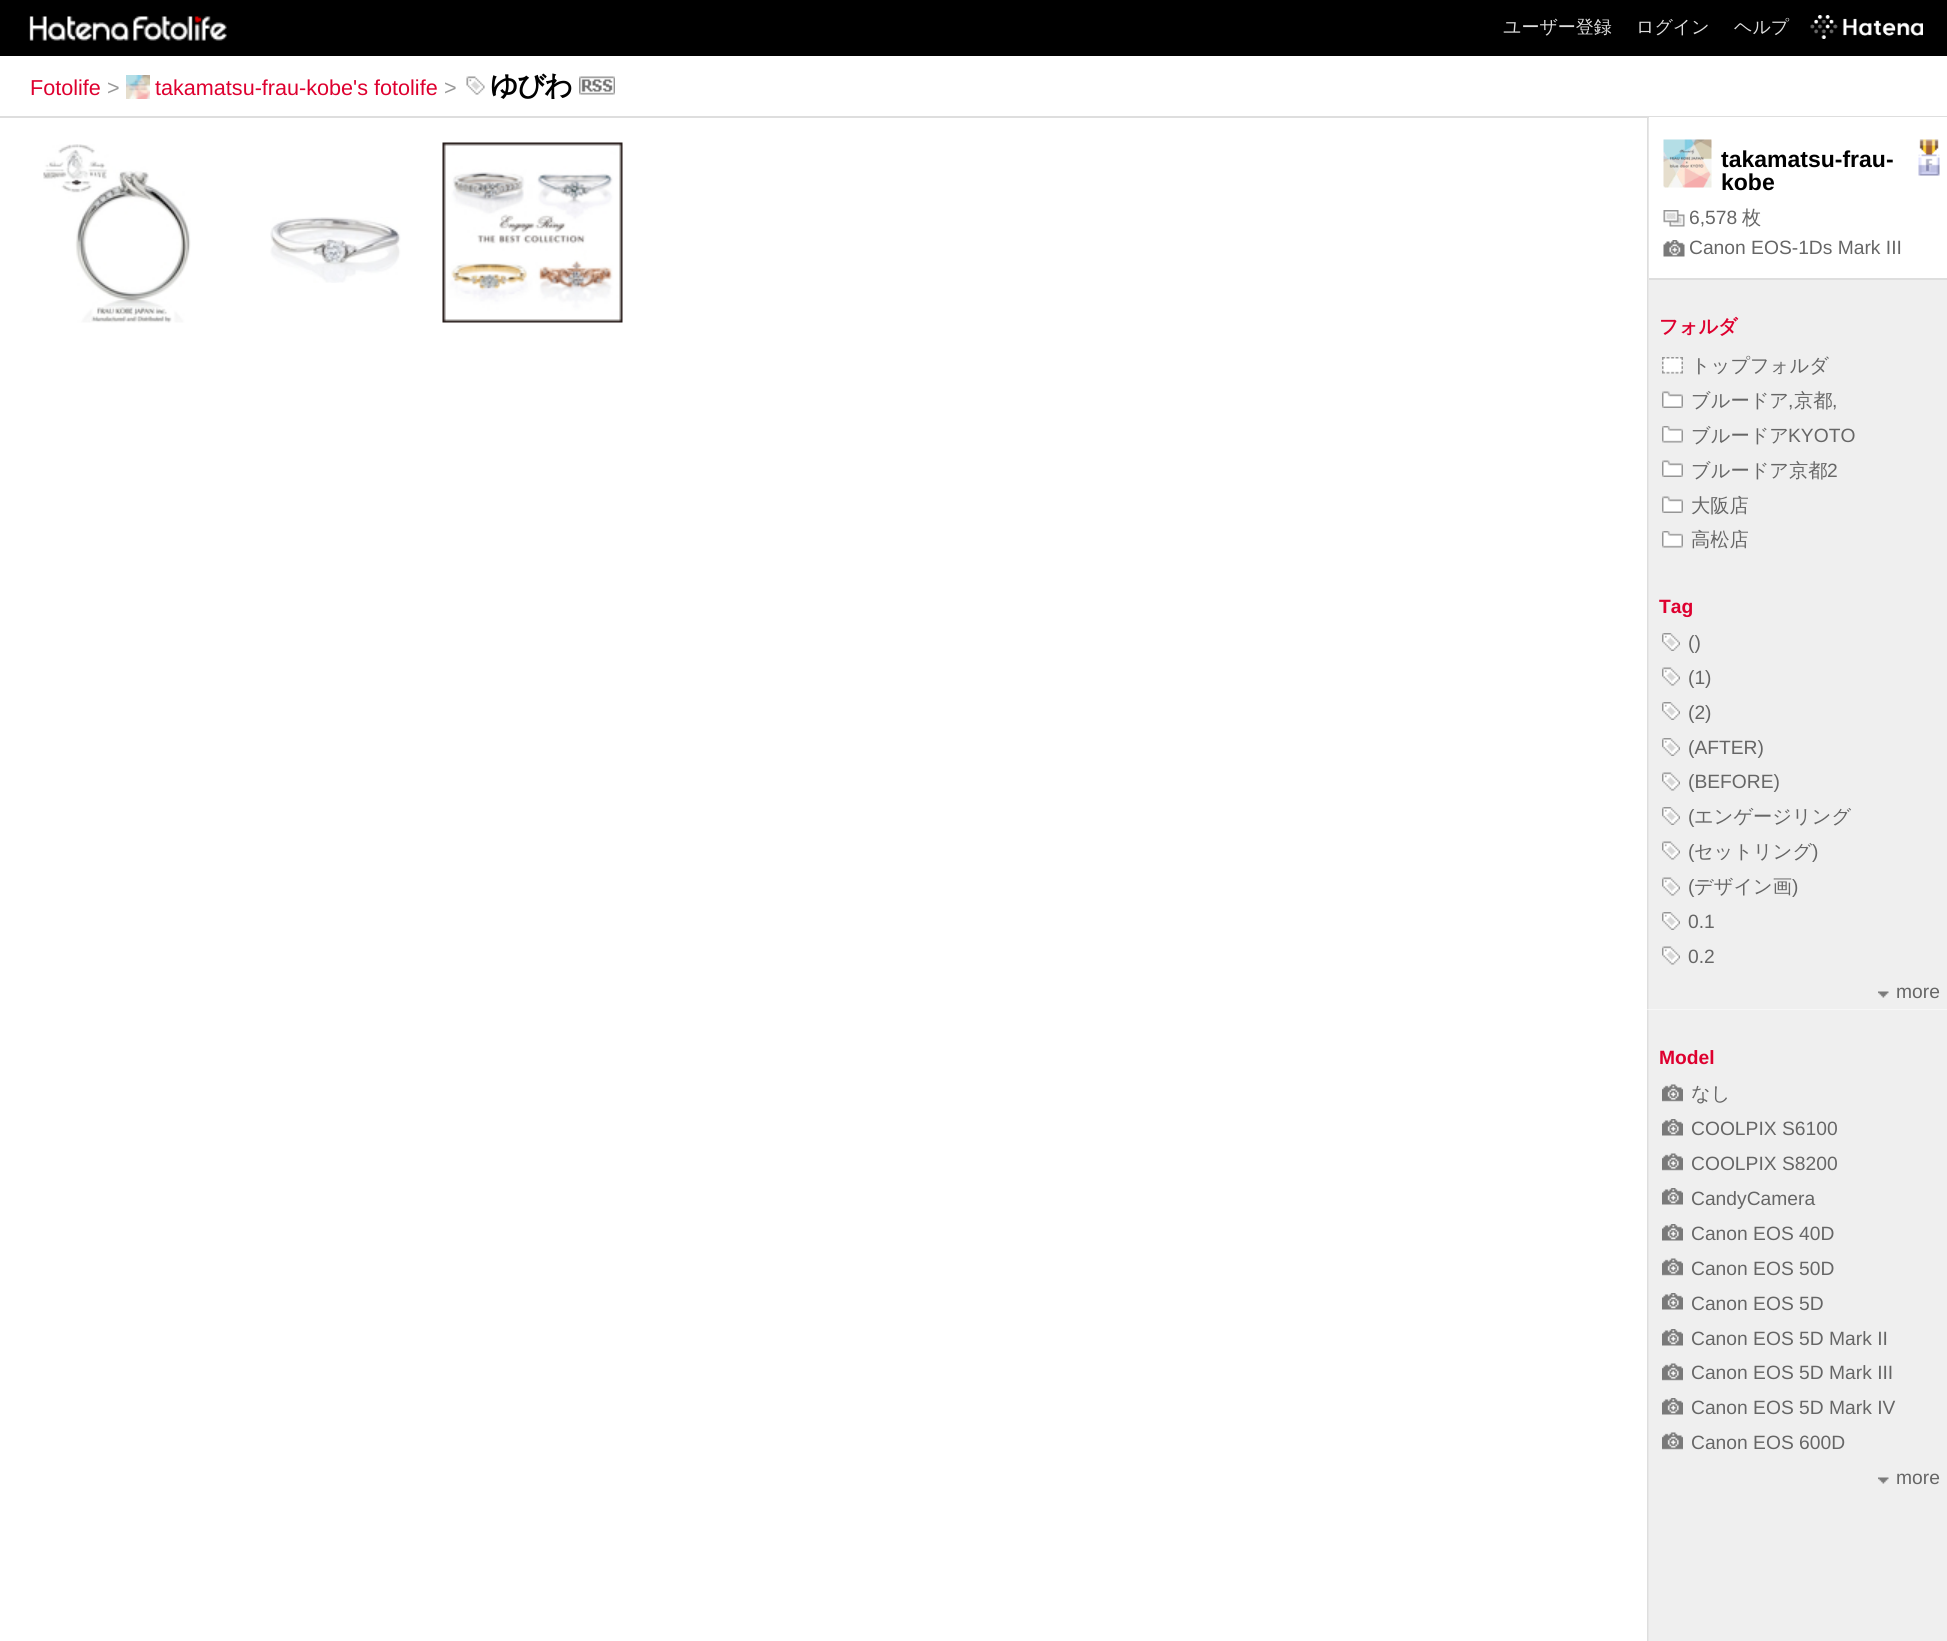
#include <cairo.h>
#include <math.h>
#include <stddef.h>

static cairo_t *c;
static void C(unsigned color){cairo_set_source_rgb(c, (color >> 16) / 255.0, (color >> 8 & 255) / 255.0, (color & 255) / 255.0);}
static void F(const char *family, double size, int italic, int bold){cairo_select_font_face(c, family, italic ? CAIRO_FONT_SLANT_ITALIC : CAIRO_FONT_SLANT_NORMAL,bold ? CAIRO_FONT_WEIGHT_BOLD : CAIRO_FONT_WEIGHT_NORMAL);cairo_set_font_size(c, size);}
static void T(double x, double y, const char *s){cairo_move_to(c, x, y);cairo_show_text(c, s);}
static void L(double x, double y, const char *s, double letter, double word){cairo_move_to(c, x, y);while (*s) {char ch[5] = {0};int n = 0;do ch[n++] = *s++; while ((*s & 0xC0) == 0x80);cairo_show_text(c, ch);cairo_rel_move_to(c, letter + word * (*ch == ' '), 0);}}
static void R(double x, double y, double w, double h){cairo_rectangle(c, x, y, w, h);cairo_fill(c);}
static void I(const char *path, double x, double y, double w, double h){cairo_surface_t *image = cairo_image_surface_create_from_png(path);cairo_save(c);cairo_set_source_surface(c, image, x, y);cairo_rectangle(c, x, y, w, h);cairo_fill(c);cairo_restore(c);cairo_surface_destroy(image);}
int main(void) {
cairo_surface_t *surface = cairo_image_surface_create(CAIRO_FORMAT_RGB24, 1947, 1641);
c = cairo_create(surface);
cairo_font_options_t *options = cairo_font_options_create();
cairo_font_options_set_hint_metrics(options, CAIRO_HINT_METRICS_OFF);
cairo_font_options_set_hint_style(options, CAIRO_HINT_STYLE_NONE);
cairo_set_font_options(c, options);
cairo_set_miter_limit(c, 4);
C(0xffffff);
cairo_paint(c);
I("1.png",1647,118,300,1523);
C(0x000000);
R(0,0,1947,56);
I("2.png",29,16,101,25);
I("3.png",133,16,94,25);
F("WenQuanYi Zen Hei Medium",18,0,0);
C(0xdddddd);
T(1503,33,"ユーザー登録");
T(1636,33,"ログイン");
T(1734,33,"ヘルプ");
I("4.png",1810,15,113,24);
C(0xdedede);
R(0,116,1947,2);
F("Liberation Sans",21.6,0,0);
C(0xde002f);
T(30,95,"Fotolife");
C(0x999999);
T(107,95,">");
I("5.png",126,75,24,24);
C(0xde002f);
T(155,95,"takamatsu-frau-kobe's fotolife");
C(0x999999);
T(444,95,">");
I("6.png",466,76,19,19);
F("WenQuanYi Zen Hei",28,0,1);
C(0x000000);
L(490,95,"ゆびわ",-1.5,0);
I("7.png",579,76,36,19);
I("8.png",43,144,148,179);
I("9.png",270,217,131,66);
I("10.png",442,142,181,181);
C(0xffffff);
R(1649,117,298,161);
C(0xdedede);
R(1649,278,298,2);
I("11.png",1663,139,49,49);
F("Liberation Sans",23,0,1);
C(0x000000);
T(1721,167,"takamatsu-frau-");
T(1721,190,"kobe");
I("12.png",1918,139,22,37);
I("13.png",1663,210,22,17);
F("Liberation Sans",19.25,0,0);
C(0x666666);
T(1689,224,"6,578");
F("WenQuanYi Zen Hei Medium",19.25,0,0);
T(1742,224,"枚");
I("14.png",1663,240,22,17);
F("Liberation Sans",19.25,0,0);
T(1689,254,"Canon EOS-1Ds Mark III");
F("WenQuanYi Zen Hei",19.25,0,1);
C(0xde002f);
T(1659,333,"フォルダ");
I("15.png",1647,348,300,210);
I("16.png",1662,357,21,17);
F("WenQuanYi Zen Hei Medium",19.25,0,0);
C(0x666666);
T(1691,372,"トップフォルダ");
I("17.png",1662,391,21,17);
T(1691,407,"ブルードア");
F("Liberation Sans",19.25,0,0);
T(1788,407,",");
F("WenQuanYi Zen Hei Medium",19.25,0,0);
T(1794,407,"京都");
F("Liberation Sans",19.25,0,0);
T(1832,407,",");
I("18.png",1662,426,21,17);
F("WenQuanYi Zen Hei Medium",19.25,0,0);
T(1691,442,"ブルードア");
F("Liberation Sans",19.25,0,0);
T(1788,442,"KYOTO");
I("17.png",1662,460,21,17);
F("WenQuanYi Zen Hei Medium",19.25,0,0);
T(1691,477,"ブルードア京都");
F("Liberation Sans",19.25,0,0);
T(1827,477,"2");
I("17.png",1662,496,21,17);
F("WenQuanYi Zen Hei Medium",19.25,0,0);
T(1691,512,"大阪店");
I("18.png",1662,531,21,17);
T(1691,546,"高松店");
F("Liberation Sans",19.25,0,1);
C(0xde002f);
T(1659,613,"Tag");
C(0xffffff);
R(1647,1009,300,1);
I("19.png",1647,626,300,384);
I("20.png",1662,633,18,18);
F("Liberation Sans",19.25,0,0);
C(0x666666);
T(1688,649,"()");
I("21.png",1662,667,18,19);
T(1688,684,"(1)");
I("20.png",1662,702,18,18);
T(1688,719,"(2)");
I("20.png",1662,738,18,18);
T(1688,754,"(AFTER)");
I("21.png",1662,772,18,19);
T(1688,788,"(BEFORE)");
I("20.png",1662,807,18,18);
T(1688,823,"(");
F("WenQuanYi Zen Hei Medium",19.25,0,0);
T(1694,823,"エンゲージリング");
I("21.png",1662,841,18,19);
F("Liberation Sans",19.25,0,0);
T(1688,858,"(");
F("WenQuanYi Zen Hei Medium",19.25,0,0);
T(1694,858,"セットリング");
F("Liberation Sans",19.25,0,0);
T(1812,858,")");
I("21.png",1662,877,18,19);
T(1688,893,"(");
F("WenQuanYi Zen Hei Medium",19.25,0,0);
T(1694,893,"デザイン画");
F("Liberation Sans",19.25,0,0);
T(1792,893,")");
I("20.png",1662,912,18,18);
T(1688,928,"0.1");
I("21.png",1662,946,18,19);
T(1688,963,"0.2");
I("22.png",1878,991,11,7);
T(1896,998,"more");
F("Liberation Sans",19.25,0,1);
C(0xde002f);
T(1659,1064,"Model");
I("23.png",1662,1084,21,18);
F("WenQuanYi Zen Hei Medium",19.25,0,0);
C(0x666666);
T(1691,1100,"なし");
I("24.png",1662,1119,21,17);
F("Liberation Sans",19.25,0,0);
T(1691,1135,"COOLPIX S6100");
I("23.png",1662,1153,21,18);
T(1691,1170,"COOLPIX S8200");
I("24.png",1662,1188,21,17);
T(1691,1205,"CandyCamera");
I("24.png",1662,1224,21,17);
T(1691,1240,"Canon EOS 40D");
I("23.png",1662,1258,21,18);
T(1691,1275,"Canon EOS 50D");
I("24.png",1662,1293,21,17);
T(1691,1310,"Canon EOS 5D");
I("24.png",1662,1329,21,17);
T(1691,1345,"Canon EOS 5D Mark II");
I("23.png",1662,1363,21,18);
T(1691,1379,"Canon EOS 5D Mark III");
I("24.png",1662,1398,21,17);
T(1691,1414,"Canon EOS 5D Mark IV");
I("23.png",1662,1432,21,18);
T(1691,1449,"Canon EOS 600D");
I("22.png",1878,1477,11,7);
T(1896,1484,"more");
cairo_surface_write_to_png(surface, "o.png");
cairo_font_options_destroy(options);
cairo_destroy(c);
cairo_surface_destroy(surface);
return 0;
}
